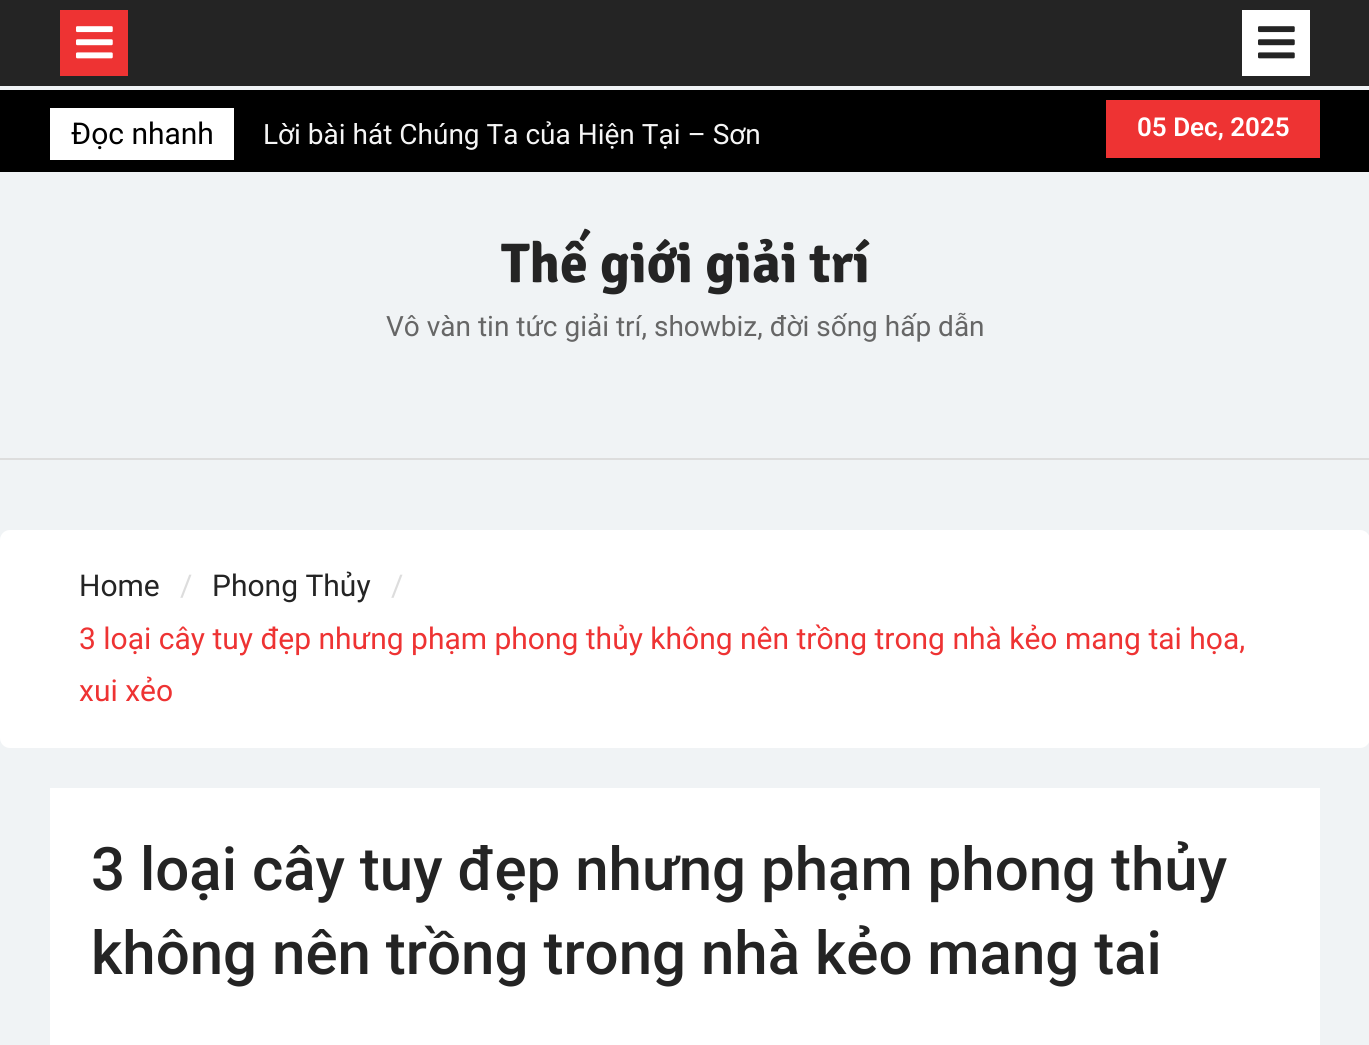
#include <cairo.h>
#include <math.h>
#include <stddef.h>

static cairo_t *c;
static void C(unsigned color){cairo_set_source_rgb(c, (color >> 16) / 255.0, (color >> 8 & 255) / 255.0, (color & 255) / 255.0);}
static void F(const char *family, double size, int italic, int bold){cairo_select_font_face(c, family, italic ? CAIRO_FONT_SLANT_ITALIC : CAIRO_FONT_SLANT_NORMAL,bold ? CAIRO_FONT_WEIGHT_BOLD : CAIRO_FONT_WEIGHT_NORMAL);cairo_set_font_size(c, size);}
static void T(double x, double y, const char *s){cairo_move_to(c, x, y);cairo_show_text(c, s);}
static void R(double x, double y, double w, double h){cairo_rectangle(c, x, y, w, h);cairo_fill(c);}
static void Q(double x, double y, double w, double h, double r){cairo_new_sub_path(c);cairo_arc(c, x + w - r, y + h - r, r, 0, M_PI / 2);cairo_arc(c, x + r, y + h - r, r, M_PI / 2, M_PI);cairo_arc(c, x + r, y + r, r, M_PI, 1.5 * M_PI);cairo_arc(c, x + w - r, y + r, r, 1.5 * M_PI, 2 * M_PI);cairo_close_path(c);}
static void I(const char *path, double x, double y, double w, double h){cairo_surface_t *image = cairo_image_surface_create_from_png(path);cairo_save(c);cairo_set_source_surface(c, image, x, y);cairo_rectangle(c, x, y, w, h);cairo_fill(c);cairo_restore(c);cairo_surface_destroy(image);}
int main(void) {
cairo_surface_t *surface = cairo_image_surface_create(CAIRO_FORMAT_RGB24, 1369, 1045);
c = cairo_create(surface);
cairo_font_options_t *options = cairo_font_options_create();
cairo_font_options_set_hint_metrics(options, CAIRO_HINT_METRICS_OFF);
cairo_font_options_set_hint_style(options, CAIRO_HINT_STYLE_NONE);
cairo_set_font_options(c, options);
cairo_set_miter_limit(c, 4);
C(0xf0f3f5);
cairo_paint(c);
C(0x242424);
R(0,0,1369,86);
C(0xee3333);
R(60,10,68,66);
I("1.png",76,26,37,33);
C(0xffffff);
R(1242,10,68,66);
I("2.png",1258,26,37,33);
C(0x000000);
R(0,90,1369,82);
C(0xffffff);
R(50,108,184,52);
F("Roboto",30,0,0);
C(0x000000);
T(71,144,"Đọc nhanh");
F("Roboto",28,0,0);
C(0xf5f5f5);
T(263,144,"Lời bài hát Chúng Ta của Hiện Tại – Sơn");
C(0xee3333);
R(1106,100,214,58);
F("Roboto SemiBold",26,0,0);
C(0xffffff);
T(1137,136,"05 Dec, 2025");
C(0xdddddd);
R(0,458,1369,2);
F("Signika",56,0,1);
C(0x242424);
T(501,282,"Thế giới giải trí");
F("Roboto",28,0,0);
C(0x666666);
T(386,336,"Vô vàn tin tức giải trí, showbiz, đời sống hấp dẫn");
C(0xffffff);
Q(0,530,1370,218,10);
cairo_fill(c);
F("Roboto",30,0,0);
C(0x242424);
T(79,596,"Home");
C(0xdddddd);
T(180,596,"/");
C(0x242424);
T(212,596,"Phong Thủy");
C(0xdddddd);
T(391,596,"/");
C(0xee3333);
T(79,649,"3 loại cây tuy đẹp nhưng phạm phong thủy không nên trồng trong nhà kẻo mang tai họa,");
T(79,701,"xui xẻo");
C(0xffffff);
R(50,788,1270,257);
F("Roboto Medium",60,0,0);
C(0x242424);
T(91,890,"3 loại cây tuy đẹp nhưng phạm phong thủy");
T(91,974,"không nên trồng trong nhà kẻo mang tai");
cairo_surface_write_to_png(surface, "o.png");
cairo_font_options_destroy(options);
cairo_destroy(c);
cairo_surface_destroy(surface);
return 0;
}
